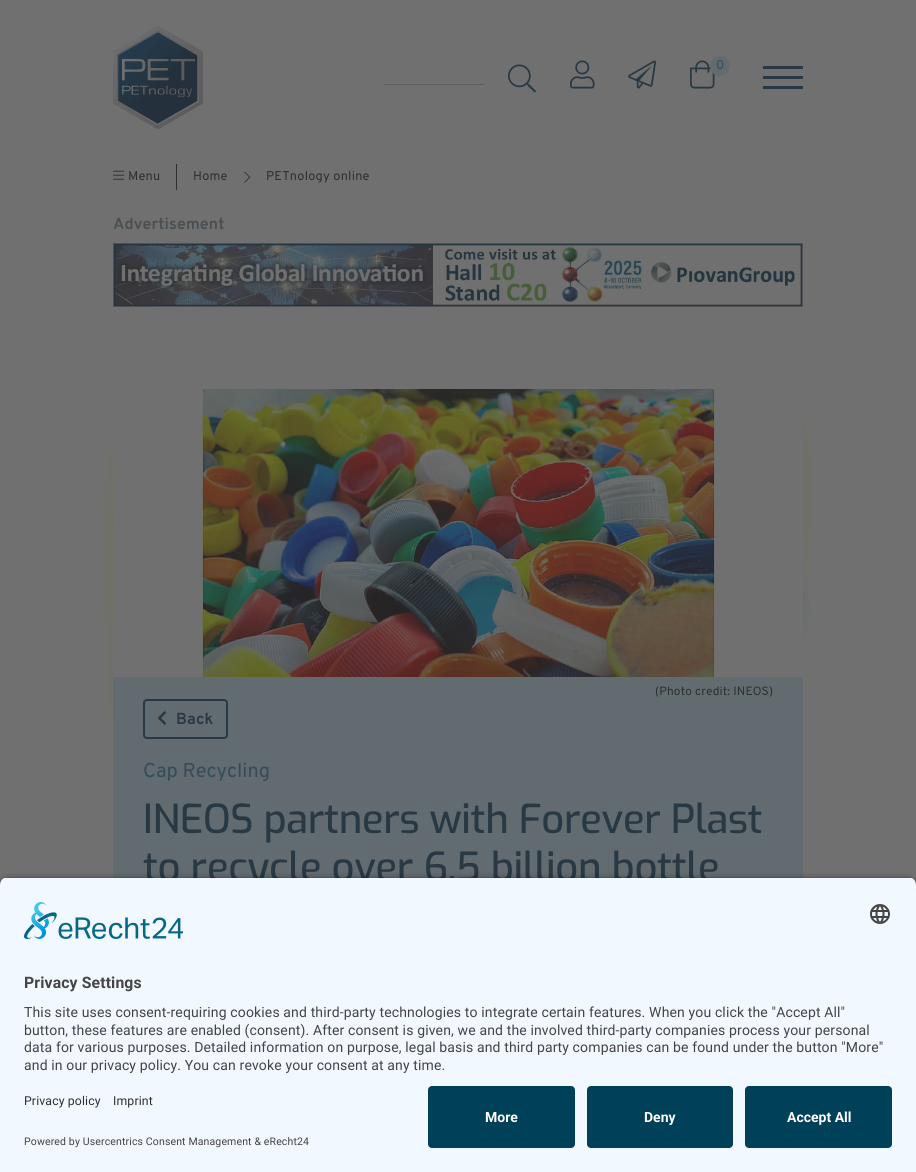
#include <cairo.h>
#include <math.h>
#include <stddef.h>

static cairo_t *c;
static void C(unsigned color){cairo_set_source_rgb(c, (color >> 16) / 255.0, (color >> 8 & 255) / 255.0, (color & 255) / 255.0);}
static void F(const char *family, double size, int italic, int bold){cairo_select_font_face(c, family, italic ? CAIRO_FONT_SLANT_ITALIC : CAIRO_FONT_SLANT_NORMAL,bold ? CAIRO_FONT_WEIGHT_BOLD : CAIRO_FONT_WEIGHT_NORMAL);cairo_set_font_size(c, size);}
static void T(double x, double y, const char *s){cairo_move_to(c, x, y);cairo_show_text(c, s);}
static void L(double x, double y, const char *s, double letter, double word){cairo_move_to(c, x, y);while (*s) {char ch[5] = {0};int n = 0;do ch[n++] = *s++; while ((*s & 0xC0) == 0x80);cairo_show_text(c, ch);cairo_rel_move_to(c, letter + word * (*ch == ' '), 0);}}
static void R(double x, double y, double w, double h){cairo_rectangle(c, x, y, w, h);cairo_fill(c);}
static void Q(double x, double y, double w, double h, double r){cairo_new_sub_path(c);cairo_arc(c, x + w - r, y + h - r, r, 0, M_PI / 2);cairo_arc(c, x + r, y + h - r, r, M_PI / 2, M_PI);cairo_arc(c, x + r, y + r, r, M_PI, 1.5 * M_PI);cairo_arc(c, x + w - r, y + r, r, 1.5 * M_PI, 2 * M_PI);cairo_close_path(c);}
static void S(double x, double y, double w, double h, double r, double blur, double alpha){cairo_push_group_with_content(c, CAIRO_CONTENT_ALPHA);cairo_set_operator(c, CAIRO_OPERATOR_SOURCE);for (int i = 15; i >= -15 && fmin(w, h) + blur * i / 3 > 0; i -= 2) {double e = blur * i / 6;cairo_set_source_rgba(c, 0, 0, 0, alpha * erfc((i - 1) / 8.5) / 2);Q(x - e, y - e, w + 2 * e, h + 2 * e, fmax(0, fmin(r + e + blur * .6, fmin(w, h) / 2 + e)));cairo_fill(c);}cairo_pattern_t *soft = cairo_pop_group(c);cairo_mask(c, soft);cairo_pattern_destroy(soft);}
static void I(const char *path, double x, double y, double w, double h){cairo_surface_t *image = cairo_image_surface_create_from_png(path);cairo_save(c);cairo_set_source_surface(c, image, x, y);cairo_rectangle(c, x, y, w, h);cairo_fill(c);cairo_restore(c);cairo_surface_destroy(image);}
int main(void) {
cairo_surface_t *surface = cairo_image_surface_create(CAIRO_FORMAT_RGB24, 916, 1172);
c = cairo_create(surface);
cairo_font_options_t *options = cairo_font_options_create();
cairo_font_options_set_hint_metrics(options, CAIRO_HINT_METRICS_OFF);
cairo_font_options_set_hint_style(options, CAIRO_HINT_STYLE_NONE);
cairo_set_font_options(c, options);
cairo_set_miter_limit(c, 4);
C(0x707070);
cairo_paint(c);
I("1.png",113,26,90,104);
C(0x5c5f61);
R(384,84,100,1);
I("2.png",508,64,28,29);
I("3.png",570,60,25,29);
I("4.png",628,60,29,29);
I("5.png",690,60,25,29);
C(0x626b6f);
cairo_arc(c,720,66,10,0,2 * M_PI);
cairo_fill(c);
F("Overpass",12.75,0,0);
C(0x344c5a);
L(716,69,"0",.25,0);
C(0x283944);
R(763,66,40,3);
R(763,76,40,3);
R(763,86,40,3);
I("6.png",113,170,12,10);
C(0x2e2f30);
L(128,180,"Menu",.25,0);
R(176,164,1,26);
L(193,180,"Home",.25,0);
I("7.png",244,171,7,12);
L(266,180,"PETnology online",.25,0);
F("Overpass",16,0,1);
C(0x494f52);
L(113,229,"Advertisement",.14,0);
cairo_rectangle(c,113.5,243.5,689,63);
C(0x525252);
cairo_set_line_width(c,1);
cairo_stroke(c);
I("8.png",114,244,688,62);
I("9.png",100,389,715,382);
I("10.png",113,389,690,288);
C(0x626b6f);
R(113,677,690,201);
F("Overpass",12,0,0);
C(0x2e2f30);
L(655,695,"(Photo credit: INEOS)",.14,0);
Q(144,700,83,38,3);
C(0x283944);
cairo_set_line_width(c,2);
cairo_stroke(c);
I("11.png",157,711,10,14);
F("Overpass",16,0,1);
L(176,724,"Back",.14,0);
F("Overpass",20,0,0);
C(0x344c5a);
T(143,777,"Cap Recycling");
F("Exo Medium",40,0,0);
C(0x283944);
L(143,833,"INEOS partners with Forever Plast",-.35,0);
L(143,881,"to recycle over 6.5 billion bottle",-.35,0);
C(0x000000);
S(0,880,916,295,8,3.5,.8);
cairo_save(c);
cairo_new_path(c);
cairo_move_to(c,8,877);
cairo_line_to(c,908,877);
cairo_curve_to(c,912.5,877,916,880.5,916,885);
cairo_line_to(c,916,1078);
cairo_line_to(c,0,1078);
cairo_line_to(c,0,885);
cairo_curve_to(c,0,880.5,3.5,877,8,877);
cairo_close_path(c);
cairo_clip(c);
C(0xf1f8ff);
R(0,878,916,200);
cairo_restore(c);
I("12.png",24,902,160,37);
I("13.png",870,904,20,20);
F("Roboto",15.75,0,1);
C(0x444444);
L(24,988,"Privacy Settings",.14,0);
F("Roboto",14,0,0);
L(24,1017,"This site uses consent-requiring cookies and third-party technologies to integrate certain features. When you click the \"Accept All\"",.14,0);
L(24,1035,"button, these features are enabled (consent). After consent is given, we and the involved third-party companies process your personal",.14,0);
L(24,1052,"data for various purposes. Detailed information on purpose, legal basis and third party companies can be found under the button \"More\"",.14,0);
L(24,1070,"and in our privacy policy. You can revoke your consent at any time.",.14,0);
C(0xf1f8ff);
R(0,1078,916,94);
F("Roboto",12.25,0,0);
C(0x2e2f30);
L(24,1105,"Privacy policy",.14,0);
L(113,1105,"Imprint",.14,0);
F("Roboto",10.5,0,0);
C(0x444444);
L(24,1145,"Powered by Usercentrics Consent Management & eRecht24",.14,0);
C(0x004059);
Q(428,1086,147,62,4);
cairo_fill(c);
F("Roboto",14,0,1);
C(0xffffff);
T(485,1122,"More");
C(0x004059);
Q(587,1086,146,62,4);
cairo_fill(c);
C(0xffffff);
T(644,1122,"Deny");
C(0x004059);
Q(745,1086,147,62,4);
cairo_fill(c);
C(0xffffff);
T(787,1122,"Accept All");
cairo_surface_write_to_png(surface, "o.png");
cairo_font_options_destroy(options);
cairo_destroy(c);
cairo_surface_destroy(surface);
return 0;
}
